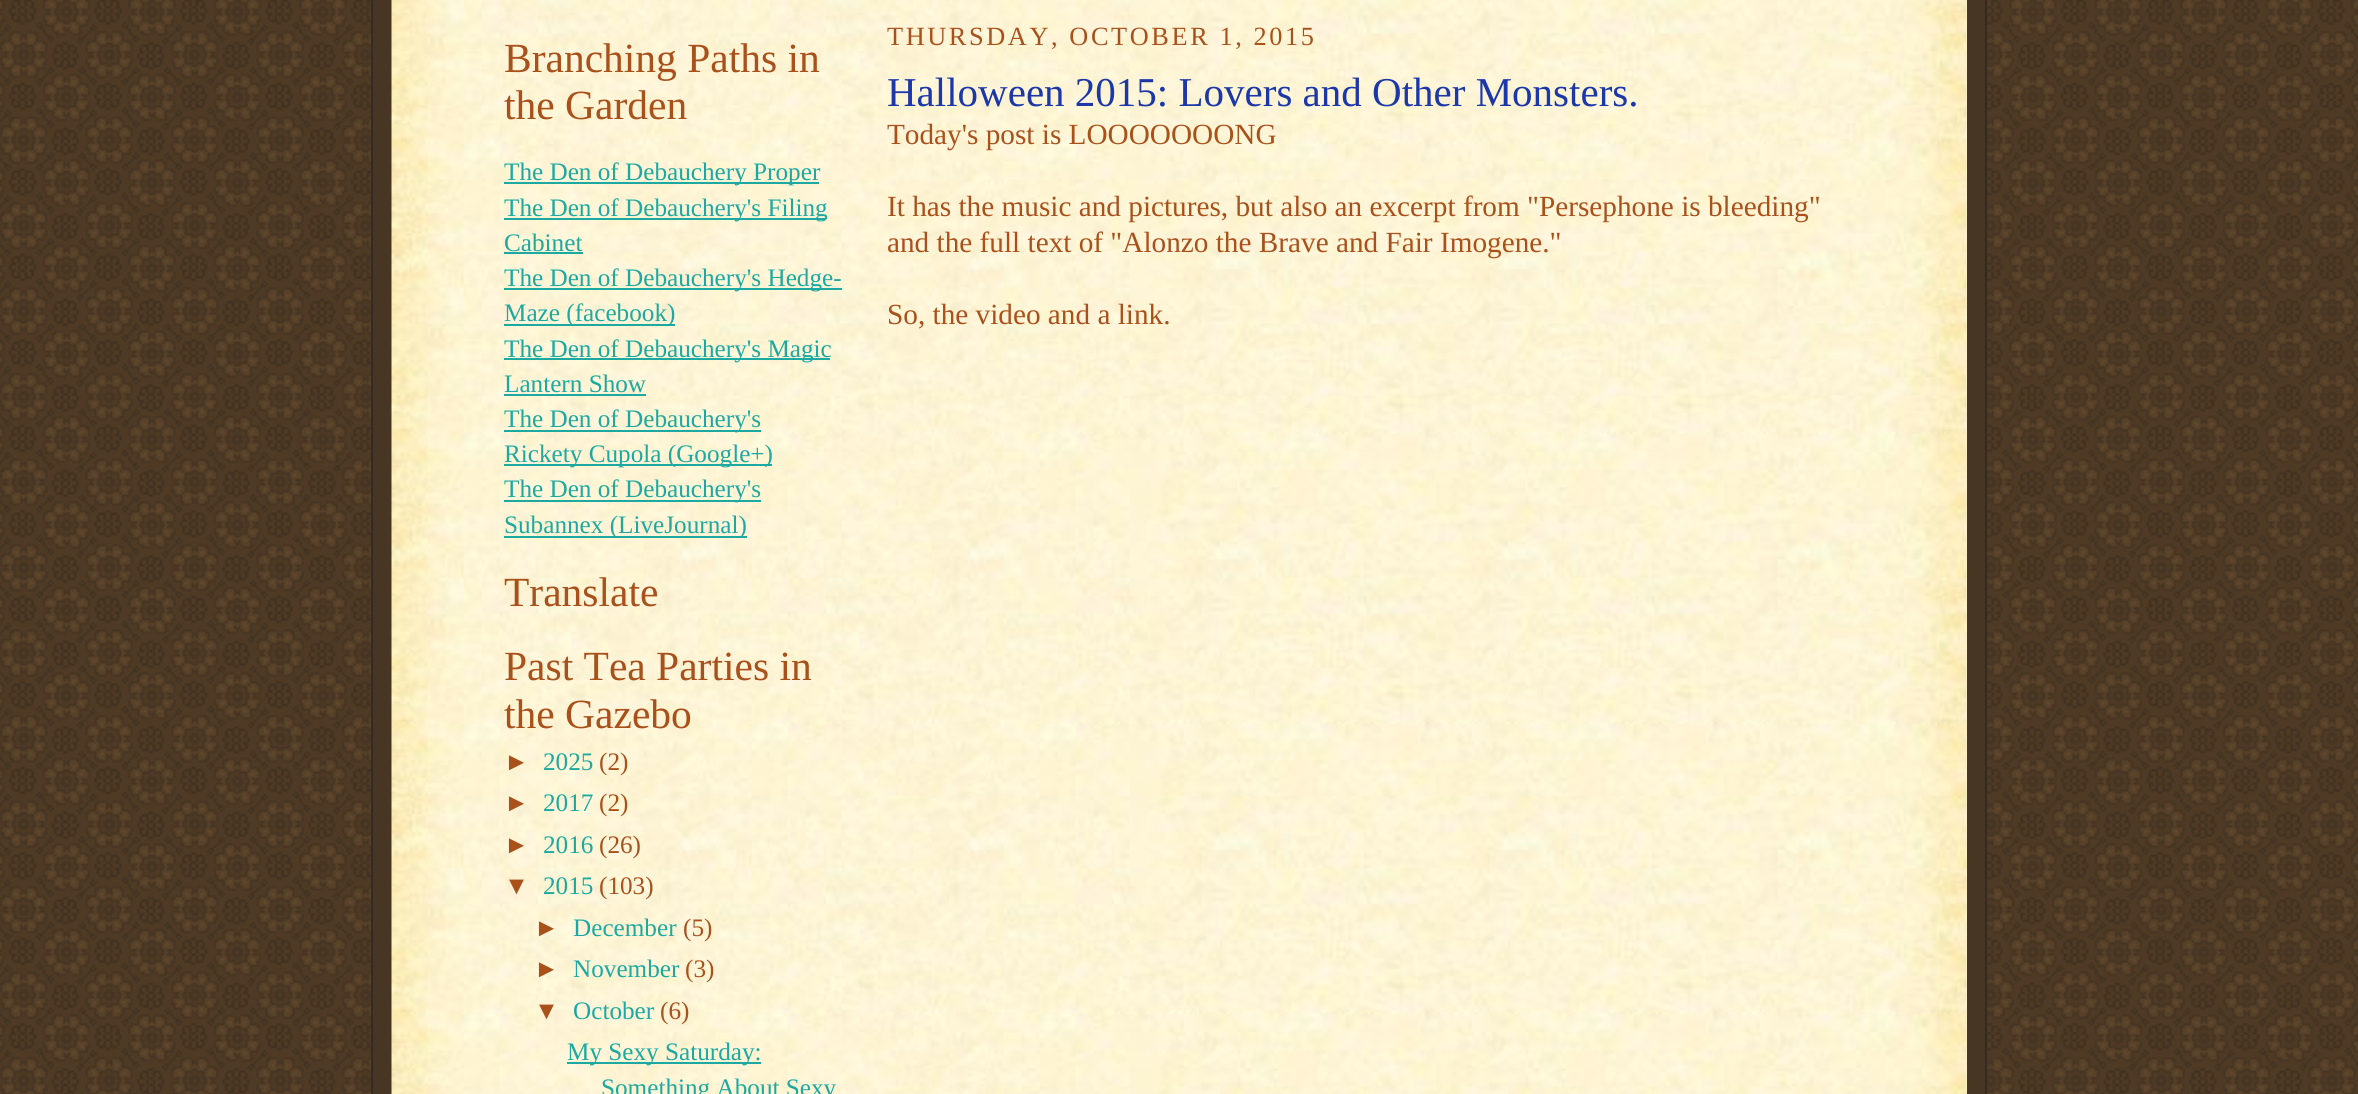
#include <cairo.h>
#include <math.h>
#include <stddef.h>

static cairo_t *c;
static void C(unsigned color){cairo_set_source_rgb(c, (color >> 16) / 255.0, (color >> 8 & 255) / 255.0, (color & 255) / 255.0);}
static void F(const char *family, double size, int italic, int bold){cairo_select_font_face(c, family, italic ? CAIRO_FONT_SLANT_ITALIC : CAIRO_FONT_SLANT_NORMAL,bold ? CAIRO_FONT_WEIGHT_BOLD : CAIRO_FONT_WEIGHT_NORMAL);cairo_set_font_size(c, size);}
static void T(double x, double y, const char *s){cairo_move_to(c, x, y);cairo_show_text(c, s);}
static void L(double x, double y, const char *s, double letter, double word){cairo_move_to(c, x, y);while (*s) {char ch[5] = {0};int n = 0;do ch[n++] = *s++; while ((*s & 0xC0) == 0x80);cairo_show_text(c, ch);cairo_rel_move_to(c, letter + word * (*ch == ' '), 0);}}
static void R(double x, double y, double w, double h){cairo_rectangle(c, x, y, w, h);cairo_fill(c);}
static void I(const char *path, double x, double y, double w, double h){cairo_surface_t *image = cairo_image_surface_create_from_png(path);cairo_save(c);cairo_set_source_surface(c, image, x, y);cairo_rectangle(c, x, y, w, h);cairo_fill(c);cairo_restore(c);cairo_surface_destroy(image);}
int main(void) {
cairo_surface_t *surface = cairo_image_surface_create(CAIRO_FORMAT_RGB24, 2358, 1094);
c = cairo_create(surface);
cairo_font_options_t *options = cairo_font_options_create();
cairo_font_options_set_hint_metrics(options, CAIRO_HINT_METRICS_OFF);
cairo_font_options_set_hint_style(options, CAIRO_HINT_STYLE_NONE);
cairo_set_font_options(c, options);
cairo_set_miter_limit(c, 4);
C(0xffffff);
cairo_paint(c);
I("1.png",0,0,2358,1094);
C(0x473624);
R(373,0,1612,1094);
C(0x332a24);
R(1985,0,2,1094);
R(371,0,2,1094);
C(0xfff3db);
R(1966,0,1,1094);
I("2.png",391,0,1576,1094);
F("Liberation Serif",41.5,0,0);
C(0xa9501b);
T(504,72,"Branching Paths in");
T(504,119,"the Garden");
C(0x1ba9a1);
R(504,182,315,2);
F("Liberation Serif",25.2,0,0);
T(504,180,"The Den of Debauchery Proper");
R(504,218,322,2);
T(504,216,"The Den of Debauchery's Filing");
T(504,251,"Cabinet");
R(504,252,79,2);
R(504,288,338,2);
T(504,286,"The Den of Debauchery's Hedge-");
R(504,324,171,2);
T(504,321,"Maze (facebook)");
R(504,358,326,2);
T(504,357,"The Den of Debauchery's Magic");
T(504,392,"Lantern Show");
R(504,394,142,2);
R(504,430,257,2);
T(504,427,"The Den of Debauchery's");
R(504,464,268,2);
T(504,462,"Rickety Cupola (Google+)");
R(504,500,257,2);
T(504,497,"The Den of Debauchery's");
R(504,536,243,2);
T(504,533,"Subannex (LiveJournal)");
F("Liberation Serif",41.5,0,0);
C(0xa9501b);
T(504,606,"Translate");
T(504,680,"Past Tea Parties in");
T(504,728,"the Gazebo");
F("Liberation Sans",25.2,0,0);
T(504,770,"►");
F("Liberation Serif",25.2,0,0);
C(0x1ba9a1);
T(543,770,"2025");
C(0xa9501b);
T(599,770,"(2)");
F("Liberation Sans",25.2,0,0);
T(504,811,"►");
F("Liberation Serif",25.2,0,0);
C(0x1ba9a1);
T(543,811,"2017");
C(0xa9501b);
T(599,811,"(2)");
F("Liberation Sans",25.2,0,0);
T(504,853,"►");
F("Liberation Serif",25.2,0,0);
C(0x1ba9a1);
T(543,853,"2016");
C(0xa9501b);
T(599,853,"(26)");
F("Liberation Sans",25.2,0,0);
T(504,894,"▼");
F("Liberation Serif",25.2,0,0);
C(0x1ba9a1);
T(543,894,"2015");
C(0xa9501b);
T(599,894,"(103)");
F("Liberation Sans",25.2,0,0);
T(534,936,"►");
F("Liberation Serif",25.2,0,0);
C(0x1ba9a1);
T(573,936,"December");
C(0xa9501b);
T(683,936,"(5)");
F("Liberation Sans",25.2,0,0);
T(534,977,"►");
F("Liberation Serif",25.2,0,0);
C(0x1ba9a1);
T(573,977,"November");
C(0xa9501b);
T(685,977,"(3)");
F("Liberation Sans",25.2,0,0);
T(534,1019,"▼");
F("Liberation Serif",25.2,0,0);
C(0x1ba9a1);
T(573,1019,"October");
C(0xa9501b);
T(660,1019,"(6)");
C(0x1ba9a1);
R(567,1062,194,2);
T(567,1060,"My Sexy Saturday:");
T(601,1096,"Something About Sexy");
F("Liberation Serif",26.3,0,0);
C(0xa9501b);
L(887,45,"THURSDAY, OCTOBER 1, 2015",2.6,0);
F("Liberation Serif",41,0,0);
C(0x1b37a9);
T(887,106,"Halloween 2015: Lovers and Other Monsters.");
F("Liberation Serif",29.25,0,0);
C(0xa9501b);
T(887,144,"Today's post is LOOOOOOONG");
T(887,216,"It has the music and pictures, but also an excerpt from \"Persephone is bleeding\"");
T(887,252,"and the full text of \"Alonzo the Brave and Fair Imogene.\"");
T(887,324,"So, the video and a link.");
cairo_surface_write_to_png(surface, "o.png");
cairo_font_options_destroy(options);
cairo_destroy(c);
cairo_surface_destroy(surface);
return 0;
}
